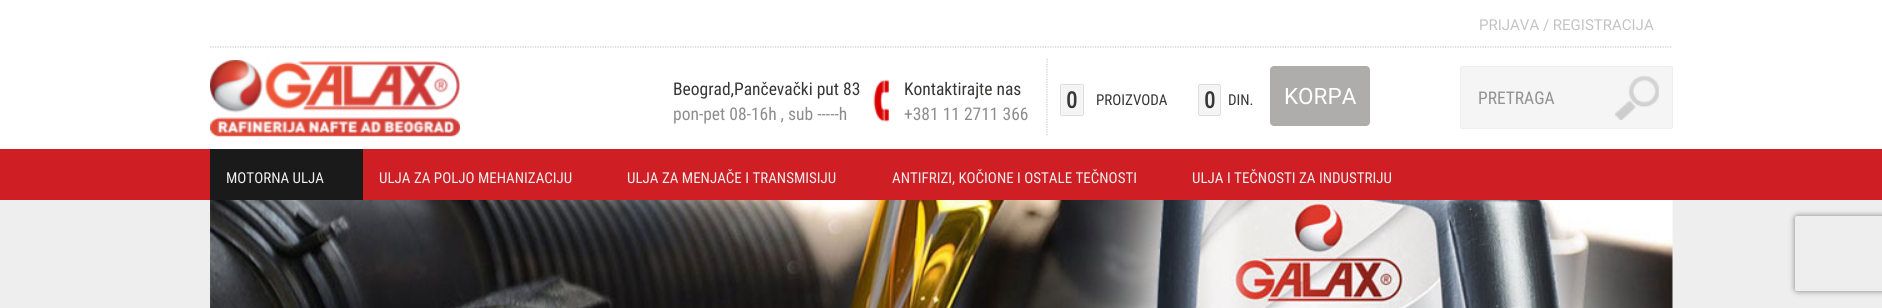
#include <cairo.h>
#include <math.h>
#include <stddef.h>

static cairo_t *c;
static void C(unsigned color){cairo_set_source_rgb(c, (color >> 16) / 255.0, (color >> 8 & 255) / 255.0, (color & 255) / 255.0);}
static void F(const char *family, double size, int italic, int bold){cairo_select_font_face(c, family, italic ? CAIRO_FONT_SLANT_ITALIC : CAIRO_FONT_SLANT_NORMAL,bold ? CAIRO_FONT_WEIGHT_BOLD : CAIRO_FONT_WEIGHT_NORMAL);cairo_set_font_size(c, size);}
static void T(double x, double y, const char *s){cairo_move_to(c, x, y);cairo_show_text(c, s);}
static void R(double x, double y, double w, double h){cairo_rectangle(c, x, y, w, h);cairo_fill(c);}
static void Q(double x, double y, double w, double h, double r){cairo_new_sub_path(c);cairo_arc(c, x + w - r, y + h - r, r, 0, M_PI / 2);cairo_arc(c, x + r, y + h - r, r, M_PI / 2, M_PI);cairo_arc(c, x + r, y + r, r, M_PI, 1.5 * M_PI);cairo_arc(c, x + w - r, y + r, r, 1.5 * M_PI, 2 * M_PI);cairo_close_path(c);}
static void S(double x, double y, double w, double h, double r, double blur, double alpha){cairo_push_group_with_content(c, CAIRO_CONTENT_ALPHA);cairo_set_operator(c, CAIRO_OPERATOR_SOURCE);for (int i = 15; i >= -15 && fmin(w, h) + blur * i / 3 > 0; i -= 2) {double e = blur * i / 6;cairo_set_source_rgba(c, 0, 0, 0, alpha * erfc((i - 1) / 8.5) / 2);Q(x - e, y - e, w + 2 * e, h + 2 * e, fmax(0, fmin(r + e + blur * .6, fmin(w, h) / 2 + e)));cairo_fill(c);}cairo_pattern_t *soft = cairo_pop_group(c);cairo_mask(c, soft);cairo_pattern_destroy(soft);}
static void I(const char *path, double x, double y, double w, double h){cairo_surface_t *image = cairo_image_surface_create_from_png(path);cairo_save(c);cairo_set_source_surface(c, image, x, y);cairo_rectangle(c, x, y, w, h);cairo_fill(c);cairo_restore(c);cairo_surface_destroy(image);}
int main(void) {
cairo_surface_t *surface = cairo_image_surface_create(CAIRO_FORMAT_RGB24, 1882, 308);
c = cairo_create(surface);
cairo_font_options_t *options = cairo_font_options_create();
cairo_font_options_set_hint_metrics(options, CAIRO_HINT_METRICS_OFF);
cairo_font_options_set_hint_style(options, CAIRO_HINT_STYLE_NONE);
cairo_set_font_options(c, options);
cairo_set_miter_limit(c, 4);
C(0xffffff);
cairo_paint(c);
F("Roboto",15,0,0);
C(0xc5c3c3);
T(1479,30,"PRIJAVA / REGISTRACIJA");
cairo_new_path(c);
cairo_move_to(c,210,47);
cairo_line_to(c,1672.5,47);
C(0xcccccc);
cairo_set_line_width(c,1.2);
cairo_set_dash(c,(double[]){1.25,1.25},2,0);
cairo_stroke(c);
I("1.png",210,60,250,77);
F("Roboto Condensed",17.5,0,0);
C(0x373736);
T(673,95,"Beograd,Pančevački put 83");
C(0x8d8d8d);
T(673,120,"pon-pet 08-16h , sub -----h");
cairo_new_path(c);
cairo_move_to(c,1047,59);
cairo_line_to(c,1047,136);
C(0xcccccc);
cairo_stroke(c);
I("2.png",873,79,16,43);
C(0x373736);
T(904,95,"Kontaktirajte nas");
C(0x8d8d8d);
T(904,120,"+381 11 2711 366");
C(0xf5f5f5);
Q(1060.5,84.5,23,31,2);
cairo_fill_preserve(c);
C(0xdddddd);
cairo_set_line_width(c,1);
cairo_set_dash(c,NULL,0,0);
cairo_stroke(c);
F("Roboto Condensed",22.5,0,1);
C(0x373736);
T(1066,108,"0");
F("Roboto Condensed",15,0,0);
T(1096,105,"PROIZVODA");
C(0xf5f5f5);
Q(1198.5,84.5,22,31,2);
cairo_fill_preserve(c);
C(0xdddddd);
cairo_stroke(c);
F("Roboto Condensed",22.5,0,1);
C(0x373736);
T(1204,108,"0");
F("Roboto Condensed",15,0,0);
T(1228,105,"DIN.");
C(0xafacac);
Q(1270,66,100,60,4);
cairo_fill(c);
F("Roboto",22.5,0,0);
C(0xffffff);
T(1284,104,"KORPA");
C(0xf5f5f5);
Q(1460,66,213,63,2.5);
cairo_fill(c);
I("3.png",1615,76,44,44);
Q(1460.5,66.5,212,62,2);
C(0xeeeeee);
cairo_stroke(c);
F("Roboto Condensed",17.5,0,0);
C(0x939292);
T(1478,104,"PRETRAGA");
C(0xcf1f25);
R(0,149,1882,51);
C(0x1a1a1a);
R(210,149,153,51);
F("Roboto Condensed",15,0,0);
C(0xeeeeee);
T(226,183,"MOTORNA ULJA");
T(379,183,"ULJA ZA POLJO MEHANIZACIJU");
T(627,183,"ULJA ZA MENJAČE I TRANSMISIJU");
T(892,183,"ANTIFRIZI, KOČIONE I OSTALE TEČNOSTI");
T(1192,183,"ULJA I TEČNOSTI ZA INDUSTRIJU");
R(0,200,1882,108);
I("4.png",210,200,1463,108);
cairo_save(c);
cairo_set_fill_rule(c,CAIRO_FILL_RULE_EVEN_ODD);
cairo_new_path(c);
cairo_move_to(c,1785,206);
cairo_line_to(c,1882,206);
cairo_line_to(c,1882,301);
cairo_line_to(c,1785,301);
cairo_close_path(c);
cairo_move_to(c,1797.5,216);
cairo_line_to(c,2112.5,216);
cairo_curve_to(c,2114,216,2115,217,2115,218.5);
cairo_line_to(c,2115,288.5);
cairo_curve_to(c,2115,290,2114,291,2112.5,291);
cairo_line_to(c,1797.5,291);
cairo_curve_to(c,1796,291,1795,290,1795,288.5);
cairo_line_to(c,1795,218.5);
cairo_curve_to(c,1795,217,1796,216,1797.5,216);
cairo_close_path(c);
cairo_clip(c);
C(0x808080);
S(1795,216,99,75,2.5,3,1);
cairo_restore(c);
cairo_surface_write_to_png(surface, "o.png");
cairo_font_options_destroy(options);
cairo_destroy(c);
cairo_surface_destroy(surface);
return 0;
}
